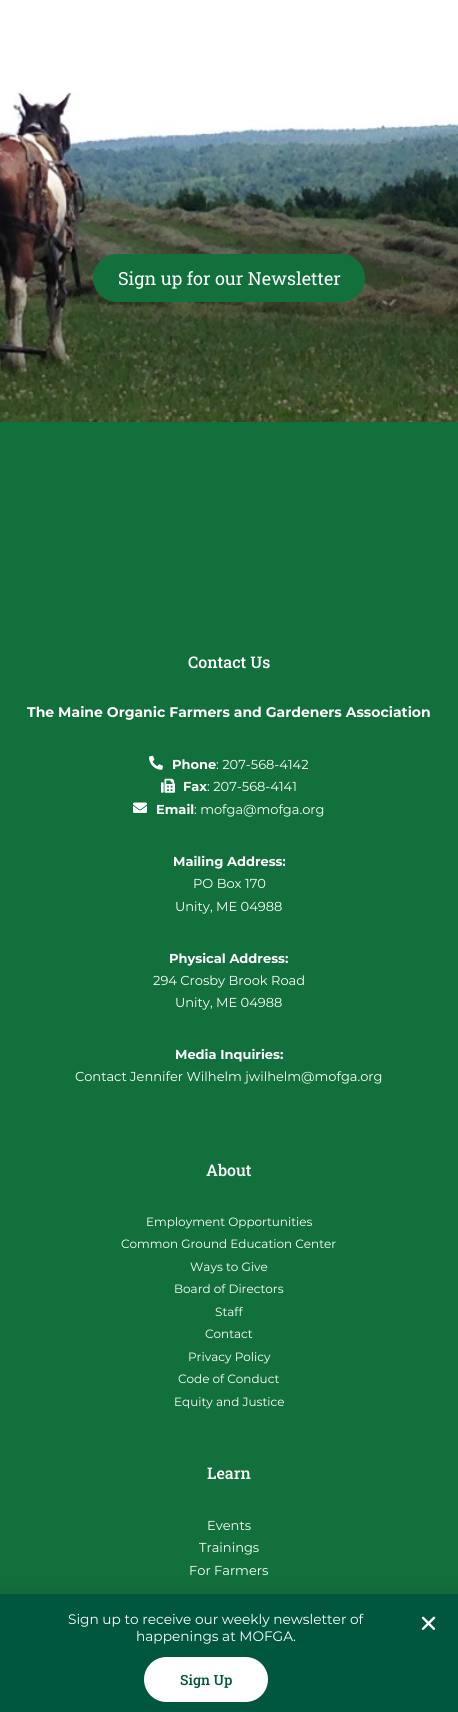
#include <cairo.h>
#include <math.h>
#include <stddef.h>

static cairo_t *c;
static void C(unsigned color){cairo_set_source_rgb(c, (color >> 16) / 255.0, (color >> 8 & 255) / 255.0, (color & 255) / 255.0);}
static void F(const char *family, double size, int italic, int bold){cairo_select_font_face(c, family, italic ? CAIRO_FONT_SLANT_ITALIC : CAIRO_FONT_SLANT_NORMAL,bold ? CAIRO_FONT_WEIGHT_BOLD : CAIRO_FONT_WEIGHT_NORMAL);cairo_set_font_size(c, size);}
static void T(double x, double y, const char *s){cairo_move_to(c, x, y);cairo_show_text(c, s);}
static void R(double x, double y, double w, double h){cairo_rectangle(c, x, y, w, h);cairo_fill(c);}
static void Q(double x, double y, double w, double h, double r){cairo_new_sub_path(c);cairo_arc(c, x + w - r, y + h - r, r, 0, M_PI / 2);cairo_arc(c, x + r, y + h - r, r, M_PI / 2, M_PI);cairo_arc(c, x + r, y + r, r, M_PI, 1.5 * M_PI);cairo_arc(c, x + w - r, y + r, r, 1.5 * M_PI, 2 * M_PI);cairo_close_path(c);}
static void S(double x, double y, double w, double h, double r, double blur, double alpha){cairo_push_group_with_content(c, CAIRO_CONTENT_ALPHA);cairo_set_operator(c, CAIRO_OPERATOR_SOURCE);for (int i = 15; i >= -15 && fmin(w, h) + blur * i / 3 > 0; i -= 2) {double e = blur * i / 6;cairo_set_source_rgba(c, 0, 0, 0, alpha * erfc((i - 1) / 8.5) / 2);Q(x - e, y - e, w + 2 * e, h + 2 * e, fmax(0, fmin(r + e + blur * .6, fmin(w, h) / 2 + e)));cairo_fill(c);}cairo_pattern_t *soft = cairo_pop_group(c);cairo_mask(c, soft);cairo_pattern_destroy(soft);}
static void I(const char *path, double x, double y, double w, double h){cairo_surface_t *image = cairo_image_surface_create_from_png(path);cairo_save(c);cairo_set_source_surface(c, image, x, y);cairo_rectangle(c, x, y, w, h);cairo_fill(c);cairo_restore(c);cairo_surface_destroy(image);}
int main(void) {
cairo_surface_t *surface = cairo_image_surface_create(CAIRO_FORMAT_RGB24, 458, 1712);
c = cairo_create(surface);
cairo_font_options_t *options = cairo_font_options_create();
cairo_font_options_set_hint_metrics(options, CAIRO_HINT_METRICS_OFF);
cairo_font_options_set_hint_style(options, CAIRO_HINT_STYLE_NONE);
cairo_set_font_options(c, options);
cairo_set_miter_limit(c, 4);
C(0xffffff);
cairo_paint(c);
I("1.png",0,92,458,330);
C(0x12703c);
Q(93,254,272,48,24);
cairo_fill(c);
F("Roboto Slab",18,0,0);
C(0xffffff);
T(118,285,"Sign up for our Newsletter");
C(0x12703c);
R(0,422,458,1172);
F("Roboto Slab Medium",16,0,0);
C(0xffffff);
T(188,668,"Contact Us");
F("Montserrat",14,0,1);
T(27,717,"The Maine Organic Farmers and Gardeners Association");
I("2.png",149,755,14,15);
F("Montserrat",13,0,1);
T(172,769,"Phone");
F("Montserrat",13,0,0);
T(216,769,": 207-568-4142");
I("3.png",161,778,14,15);
F("Montserrat",13,0,1);
T(183,791,"Fax");
F("Montserrat",13,0,0);
T(207,791,": 207-568-4141");
I("4.png",133,802,14,11);
F("Montserrat",13,0,1);
T(156,814,"Email");
F("Montserrat",13,0,0);
T(194,814,": mofga@mofga.org");
F("Montserrat",13,0,1);
T(173,866,"Mailing Address:");
F("Montserrat",13,0,0);
T(193,888,"PO Box 170");
T(175,911,"Unity, ME 04988");
F("Montserrat",13,0,1);
T(169,963,"Physical Address:");
F("Montserrat",13,0,0);
T(153,985,"294 Crosby Brook Road");
T(175,1007,"Unity, ME 04988");
F("Montserrat",13,0,1);
T(175,1059,"Media Inquiries:");
F("Montserrat",13,0,0);
T(75,1081,"Contact Jennifer Wilhelm jwilhelm@mofga.org");
F("Roboto Slab Medium",16,0,0);
T(206,1176,"About");
F("Montserrat",12,0,0);
T(146,1226,"Employment Opportunities");
T(121,1248,"Common Ground Education Center");
T(190,1271,"Ways to Give");
T(174,1293,"Board of Directors");
T(215,1316,"Staff");
T(205,1338,"Contact");
T(188,1361,"Privacy Policy");
T(178,1383,"Code of Conduct");
T(174,1406,"Equity and Justice");
F("Roboto Slab Medium",16,0,0);
T(207,1479,"Learn");
F("Montserrat",13,0,0);
T(207,1530,"Events");
T(199,1552,"Trainings");
T(189,1575,"For Farmers");
C(0x000000);
S(-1,1599,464,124,0,11.5,.2);
C(0x00573f);
R(0,1594,458,118);
F("Montserrat",13.7,0,0);
C(0xffffff);
T(68,1624,"Sign up to receive our weekly newsletter of");
T(136,1641,"happenings at MOFGA.");
Q(144,1657,124,45,22.5);
cairo_fill(c);
F("Roboto Slab Medium",14,0,0);
C(0x00573f);
T(180,1685,"Sign Up");
I("5.png",421,1616,15,14);
cairo_surface_write_to_png(surface, "o.png");
cairo_font_options_destroy(options);
cairo_destroy(c);
cairo_surface_destroy(surface);
return 0;
}
